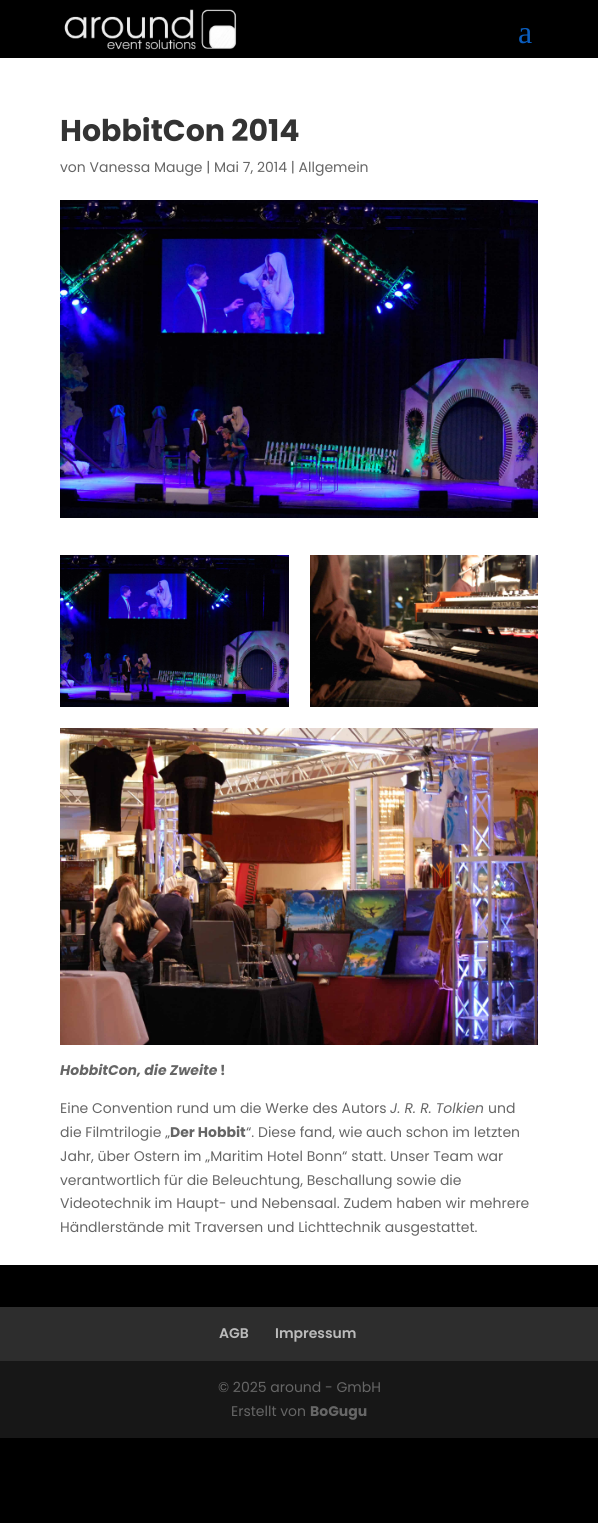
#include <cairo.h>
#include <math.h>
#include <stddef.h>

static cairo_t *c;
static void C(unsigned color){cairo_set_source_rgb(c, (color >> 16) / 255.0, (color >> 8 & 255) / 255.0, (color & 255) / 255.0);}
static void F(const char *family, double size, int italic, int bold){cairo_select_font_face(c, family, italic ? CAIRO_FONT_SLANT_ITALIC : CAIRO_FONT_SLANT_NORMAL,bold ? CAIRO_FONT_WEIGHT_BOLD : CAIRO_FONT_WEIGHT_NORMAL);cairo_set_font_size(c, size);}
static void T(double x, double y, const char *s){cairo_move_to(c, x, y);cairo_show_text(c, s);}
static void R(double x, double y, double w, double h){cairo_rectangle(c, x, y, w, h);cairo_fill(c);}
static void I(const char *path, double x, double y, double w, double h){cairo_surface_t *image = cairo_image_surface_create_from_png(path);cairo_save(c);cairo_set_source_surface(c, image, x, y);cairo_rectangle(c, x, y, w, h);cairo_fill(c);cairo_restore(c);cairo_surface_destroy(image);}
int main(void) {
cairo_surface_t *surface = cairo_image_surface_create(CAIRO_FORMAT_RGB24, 598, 1523);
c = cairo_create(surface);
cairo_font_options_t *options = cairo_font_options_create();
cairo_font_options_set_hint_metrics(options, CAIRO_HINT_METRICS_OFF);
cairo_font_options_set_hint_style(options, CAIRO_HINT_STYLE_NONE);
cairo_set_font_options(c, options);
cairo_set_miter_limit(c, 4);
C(0x000000);
cairo_paint(c);
I("1.png",64,9,173,41);
F("Liberation Serif",32,0,0);
C(0x0a5dbf);
T(518,43,"a");
C(0xffffff);
R(0,58,598,1207);
F("Poppins",30,0,1);
C(0x333333);
T(60,141,"HobbitCon 2014");
F("Poppins",14,0,0);
C(0x666666);
T(60,172,"von Vanessa Mauge | Mai 7, 2014 | Allgemein");
I("2.png",60,200,478,318);
I("3.png",60,555,229,152);
I("4.png",310,555,228,152);
I("5.png",60,728,478,317);
F("Poppins",14,1,1);
T(60,1075,"HobbitCon, die Zweite");
F("Poppins",14,0,1);
T(220,1075,"!");
F("Poppins",14,0,0);
T(60,1113,"Eine Convention rund um die Werke des Autors");
F("Poppins",14,1,0);
T(390,1113,"J. R. R. Tolkien");
F("Poppins",14,0,0);
T(488,1113,"und");
T(60,1137,"die Filmtrilogie „");
F("Poppins",14,0,1);
T(170,1137,"Der Hobbit");
F("Poppins",14,0,0);
T(246,1137,"“. Diese fand, wie auch schon im letzten");
T(60,1161,"Jahr, über Ostern im „Maritim Hotel Bonn“ statt. Unser Team war");
T(60,1185,"verantwortlich für die Beleuchtung, Beschallung sowie die");
T(60,1208,"Videotechnik im Haupt- und Nebensaal. Zudem haben wir mehrere");
T(60,1232,"Händlerstände mit Traversen und Lichttechnik ausgestattet.");
C(0x2d2d2d);
R(0,1307,598,54);
F("Poppins SemiBold",14,0,0);
C(0xbbbbbb);
T(219,1338,"AGB");
T(275,1338,"Impressum");
C(0x171717);
R(0,1361,598,77);
F("Poppins",14,0,0);
C(0x666666);
T(218,1392,"© 2025 around - GmbH");
T(231,1416,"Erstellt von");
F("Poppins",14,0,1);
T(310,1416,"BoGugu");
cairo_surface_write_to_png(surface, "o.png");
cairo_font_options_destroy(options);
cairo_destroy(c);
cairo_surface_destroy(surface);
return 0;
}
